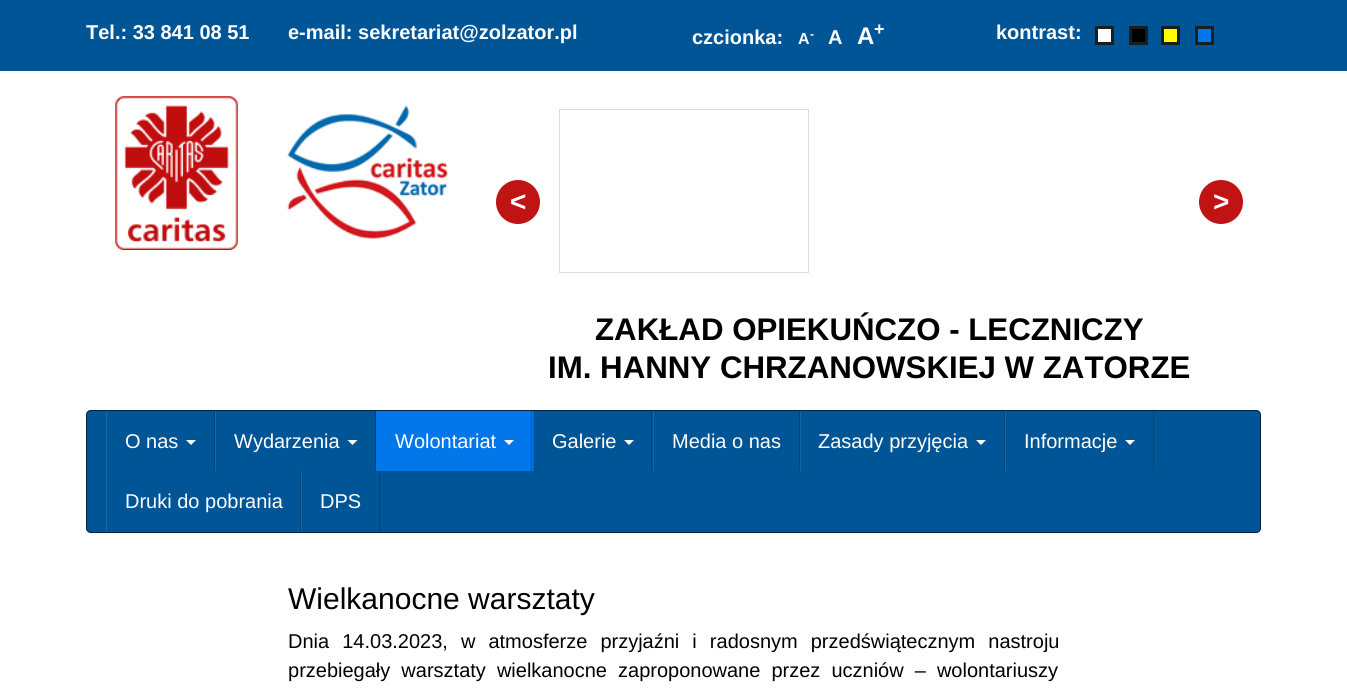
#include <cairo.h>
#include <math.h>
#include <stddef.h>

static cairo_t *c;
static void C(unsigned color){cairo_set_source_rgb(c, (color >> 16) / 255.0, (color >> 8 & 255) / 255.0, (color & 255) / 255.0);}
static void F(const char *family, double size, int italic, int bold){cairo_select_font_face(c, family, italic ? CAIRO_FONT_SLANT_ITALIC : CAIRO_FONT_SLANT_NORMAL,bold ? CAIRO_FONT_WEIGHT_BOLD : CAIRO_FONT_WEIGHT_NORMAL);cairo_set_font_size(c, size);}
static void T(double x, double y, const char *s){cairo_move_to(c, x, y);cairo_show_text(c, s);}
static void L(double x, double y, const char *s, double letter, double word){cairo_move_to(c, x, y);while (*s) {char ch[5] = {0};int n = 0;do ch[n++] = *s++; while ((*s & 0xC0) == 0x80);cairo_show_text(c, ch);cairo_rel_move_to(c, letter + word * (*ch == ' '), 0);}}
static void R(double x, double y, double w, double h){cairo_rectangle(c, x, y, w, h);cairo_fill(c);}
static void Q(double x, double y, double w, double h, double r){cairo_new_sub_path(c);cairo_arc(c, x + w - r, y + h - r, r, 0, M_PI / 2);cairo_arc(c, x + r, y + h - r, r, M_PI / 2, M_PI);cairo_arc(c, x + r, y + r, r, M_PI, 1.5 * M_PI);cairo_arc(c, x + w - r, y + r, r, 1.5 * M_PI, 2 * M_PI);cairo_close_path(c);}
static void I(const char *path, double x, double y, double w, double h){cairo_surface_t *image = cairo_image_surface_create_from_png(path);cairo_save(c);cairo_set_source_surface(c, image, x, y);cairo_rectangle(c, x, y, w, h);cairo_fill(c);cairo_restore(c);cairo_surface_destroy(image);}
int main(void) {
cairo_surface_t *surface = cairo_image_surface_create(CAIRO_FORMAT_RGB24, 1347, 692);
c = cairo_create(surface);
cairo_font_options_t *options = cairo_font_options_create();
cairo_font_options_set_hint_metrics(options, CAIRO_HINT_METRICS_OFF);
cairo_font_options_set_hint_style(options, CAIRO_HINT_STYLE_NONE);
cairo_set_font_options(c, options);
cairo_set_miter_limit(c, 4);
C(0xffffff);
cairo_paint(c);
C(0x005596);
R(0,0,1347,71);
F("Liberation Sans",20,0,1);
C(0xffffff);
T(86,39,"Tel.: 33 841 08 51");
T(288,39,"e-mail: sekretariat@zolzator.pl");
T(692,44,"czcionka:");
F("Liberation Sans",16,0,1);
T(798,44,"A");
F("Liberation Sans",12,0,1);
T(810,38,"-");
F("Liberation Sans",20,0,1);
T(828,44,"A");
F("Liberation Sans",24,0,1);
T(857,44,"A");
F("Liberation Sans",18,0,1);
T(874,35,"+");
F("Liberation Sans",20,0,1);
T(996,39,"kontrast:");
cairo_rectangle(c,1096.5,27.5,16,16);
cairo_fill_preserve(c);
C(0x191e21);
cairo_set_line_width(c,3);
cairo_stroke(c);
C(0x000000);
cairo_rectangle(c,1130.5,27.5,16,16);
cairo_fill_preserve(c);
C(0x191e21);
cairo_stroke(c);
C(0xffff00);
cairo_rectangle(c,1162.5,27.5,16,16);
cairo_fill_preserve(c);
C(0x191e21);
cairo_stroke(c);
C(0x0177e9);
cairo_rectangle(c,1196.5,27.5,16,16);
cairo_fill_preserve(c);
C(0x191e21);
cairo_stroke(c);
I("1.png",115,96,333,154);
C(0xc01313);
cairo_arc(c,518,202,22,0,2 * M_PI);
cairo_fill(c);
F("Liberation Sans",28,0,1);
C(0xffffff);
T(510,211,"<");
cairo_rectangle(c,559.5,109.5,249,163);
C(0xdcdcdc);
cairo_set_line_width(c,1);
cairo_stroke(c);
C(0xc01313);
cairo_arc(c,1221,202,22,0,2 * M_PI);
cairo_fill(c);
C(0xffffff);
T(1213,211,">");
F("Liberation Sans",31.25,0,1);
C(0x000000);
T(595,340,"ZAKŁAD OPIEKUŃCZO - LECZNICZY");
T(548,378,"IM. HANNY CHRZANOWSKIEJ W ZATORZE");
C(0x005596);
Q(86,410,1175,123,5);
cairo_fill(c);
Q(86.5,410.5,1174,122,4.5);
cairo_set_source_rgba(c,0,0,0,0.6);
cairo_stroke(c);
C(0x004478);
R(214,411,1,60);
C(0x1a66a1);
R(106,411,1,120);
F("Liberation Sans",20,0,0);
C(0xffffff);
T(125,448,"O nas");
cairo_new_path(c);
cairo_move_to(c,186,440);
cairo_line_to(c,196,440);
cairo_line_to(c,191,445);
cairo_close_path(c);
cairo_fill(c);
C(0x004478);
R(375,411,1,60);
C(0x1a66a1);
R(215,411,1,60);
C(0xffffff);
T(234,448,"Wydarzenia");
cairo_new_path(c);
cairo_move_to(c,347.5,440);
cairo_line_to(c,357.5,440);
cairo_line_to(c,352.5,445);
cairo_close_path(c);
cairo_fill(c);
C(0x0177e9);
R(376,411,157,60);
C(0x015fba);
R(531,411,1,60);
C(0xffffff);
T(395,448,"Wolontariat");
cairo_new_path(c);
cairo_move_to(c,504,440);
cairo_line_to(c,514,440);
cairo_line_to(c,509,445);
cairo_close_path(c);
cairo_fill(c);
C(0x004478);
R(651,411,1,60);
C(0x1a66a1);
R(533,411,1,60);
C(0xffffff);
T(552,448,"Galerie");
cairo_new_path(c);
cairo_move_to(c,624,440);
cairo_line_to(c,634,440);
cairo_line_to(c,629,445);
cairo_close_path(c);
cairo_fill(c);
C(0x004478);
R(799,411,1,60);
C(0x1a66a1);
R(653,411,1,60);
C(0xffffff);
T(672,448,"Media o nas");
C(0x004478);
R(1004,411,1,60);
C(0x1a66a1);
R(800,411,1,60);
C(0xffffff);
T(818,448,"Zasady przyjęcia");
cairo_new_path(c);
cairo_move_to(c,976,440);
cairo_line_to(c,986,440);
cairo_line_to(c,981,445);
cairo_close_path(c);
cairo_fill(c);
C(0x004478);
R(1153,411,1,60);
C(0x1a66a1);
R(1005,411,1,60);
C(0xffffff);
T(1024,448,"Informacje");
cairo_new_path(c);
cairo_move_to(c,1125,440);
cairo_line_to(c,1135,440);
cairo_line_to(c,1130,445);
cairo_close_path(c);
cairo_fill(c);
C(0x004478);
R(300,471,1,60);
C(0xffffff);
T(125,508,"Druki do pobrania");
C(0x004478);
R(379,471,1,60);
C(0x1a66a1);
R(301,471,1,60);
C(0xffffff);
T(320,508,"DPS");
F("Liberation Sans",30,0,0);
C(0x000000);
T(288,609,"Wielkanocne warsztaty");
F("Liberation Sans",20,0,0);
L(288,648,"Dnia 14.03.2023, w atmosferze przyjaźni i radosnym przedświątecznym nastroju",0,7.5);
L(288,677,"przebiegały warsztaty wielkanocne zaproponowane przez uczniów – wolontariuszy",0,5.5);
cairo_surface_write_to_png(surface, "o.png");
cairo_font_options_destroy(options);
cairo_destroy(c);
cairo_surface_destroy(surface);
return 0;
}
